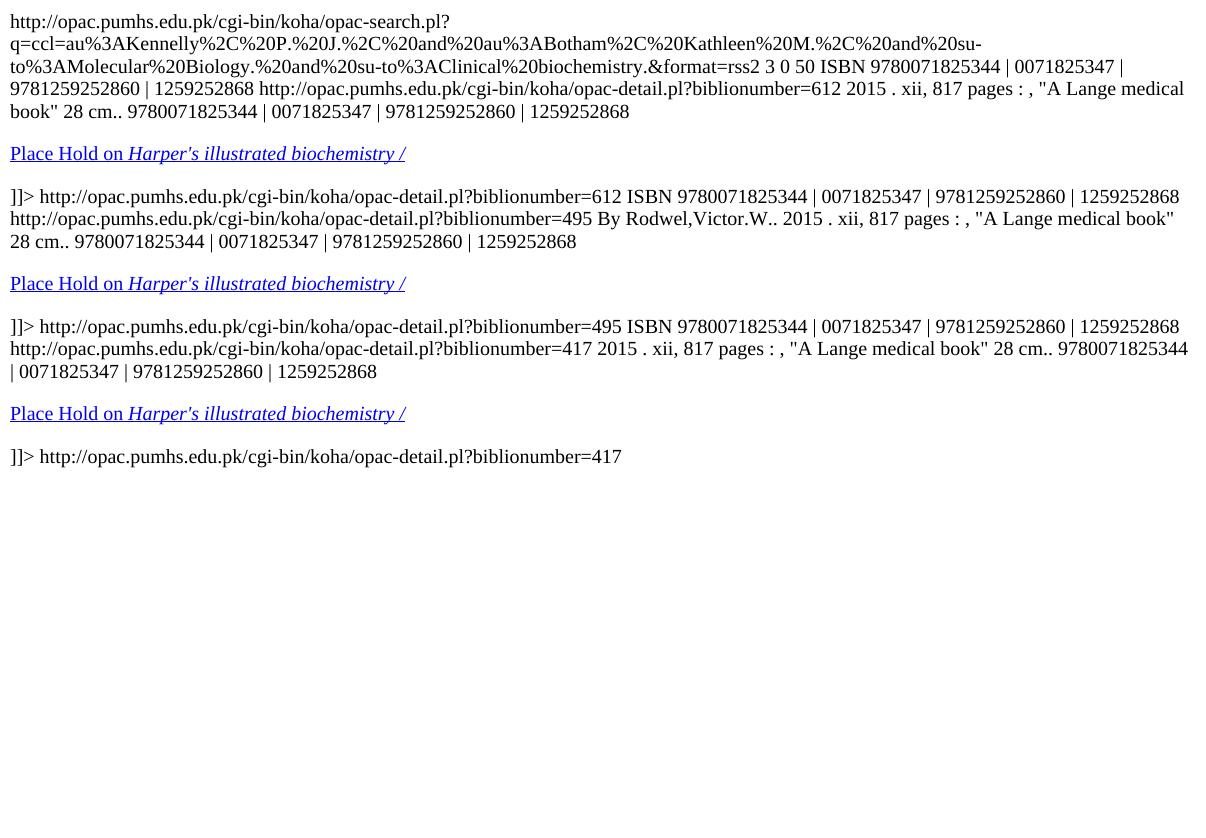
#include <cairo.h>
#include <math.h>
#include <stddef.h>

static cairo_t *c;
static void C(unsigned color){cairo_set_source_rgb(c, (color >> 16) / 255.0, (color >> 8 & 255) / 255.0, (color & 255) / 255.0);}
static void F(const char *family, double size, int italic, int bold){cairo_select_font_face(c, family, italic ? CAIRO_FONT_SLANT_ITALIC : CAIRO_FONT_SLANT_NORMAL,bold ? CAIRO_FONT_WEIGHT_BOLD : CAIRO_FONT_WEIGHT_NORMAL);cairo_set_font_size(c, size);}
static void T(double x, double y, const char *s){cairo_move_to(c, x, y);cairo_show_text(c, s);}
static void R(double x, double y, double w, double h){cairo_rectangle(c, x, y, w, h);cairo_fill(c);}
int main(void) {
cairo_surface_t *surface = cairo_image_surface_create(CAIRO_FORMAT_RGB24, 1206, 838);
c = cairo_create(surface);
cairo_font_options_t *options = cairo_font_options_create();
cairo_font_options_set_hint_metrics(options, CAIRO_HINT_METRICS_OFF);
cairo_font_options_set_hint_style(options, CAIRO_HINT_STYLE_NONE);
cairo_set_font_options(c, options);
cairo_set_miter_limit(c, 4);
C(0xffffff);
cairo_paint(c);
F("Liberation Serif",20,0,0);
C(0x000000);
T(10,28,"http://opac.pumhs.edu.pk/cgi-bin/koha/opac-search.pl?");
T(10,50,"q=ccl=au%3AKennelly%2C%20P.%20J.%2C%20and%20au%3ABotham%2C%20Kathleen%20M.%2C%20and%20su-");
T(10,73,"to%3AMolecular%20Biology.%20and%20su-to%3AClinical%20biochemistry.&format=rss2 3 0 50 ISBN 9780071825344 | 0071825347 |");
T(10,95,"9781259252860 | 1259252868 http://opac.pumhs.edu.pk/cgi-bin/koha/opac-detail.pl?biblionumber=612 2015 . xii, 817 pages : , \"A Lange medical");
T(10,118,"book\" 28 cm.. 9780071825344 | 0071825347 | 9781259252860 | 1259252868");
C(0x0000ee);
T(10,160,"Place Hold on");
R(10,161,395,1);
F("Liberation Serif",20,1,0);
T(128,160,"Harper's illustrated biochemistry /");
F("Liberation Serif",20,0,0);
C(0x000000);
T(10,203,"]]> http://opac.pumhs.edu.pk/cgi-bin/koha/opac-detail.pl?biblionumber=612 ISBN 9780071825344 | 0071825347 | 9781259252860 | 1259252868");
T(10,225,"http://opac.pumhs.edu.pk/cgi-bin/koha/opac-detail.pl?biblionumber=495 By Rodwel,Victor.W.. 2015 . xii, 817 pages : , \"A Lange medical book\"");
T(10,248,"28 cm.. 9780071825344 | 0071825347 | 9781259252860 | 1259252868");
C(0x0000ee);
T(10,290,"Place Hold on");
R(10,291,395,1);
F("Liberation Serif",20,1,0);
T(128,290,"Harper's illustrated biochemistry /");
F("Liberation Serif",20,0,0);
C(0x000000);
T(10,333,"]]> http://opac.pumhs.edu.pk/cgi-bin/koha/opac-detail.pl?biblionumber=495 ISBN 9780071825344 | 0071825347 | 9781259252860 | 1259252868");
T(10,355,"http://opac.pumhs.edu.pk/cgi-bin/koha/opac-detail.pl?biblionumber=417 2015 . xii, 817 pages : , \"A Lange medical book\" 28 cm.. 9780071825344");
T(10,378,"| 0071825347 | 9781259252860 | 1259252868");
C(0x0000ee);
T(10,420,"Place Hold on");
R(10,421,395,1);
F("Liberation Serif",20,1,0);
T(128,420,"Harper's illustrated biochemistry /");
F("Liberation Serif",20,0,0);
C(0x000000);
T(10,463,"]]> http://opac.pumhs.edu.pk/cgi-bin/koha/opac-detail.pl?biblionumber=417");
cairo_surface_write_to_png(surface, "o.png");
cairo_font_options_destroy(options);
cairo_destroy(c);
cairo_surface_destroy(surface);
return 0;
}
